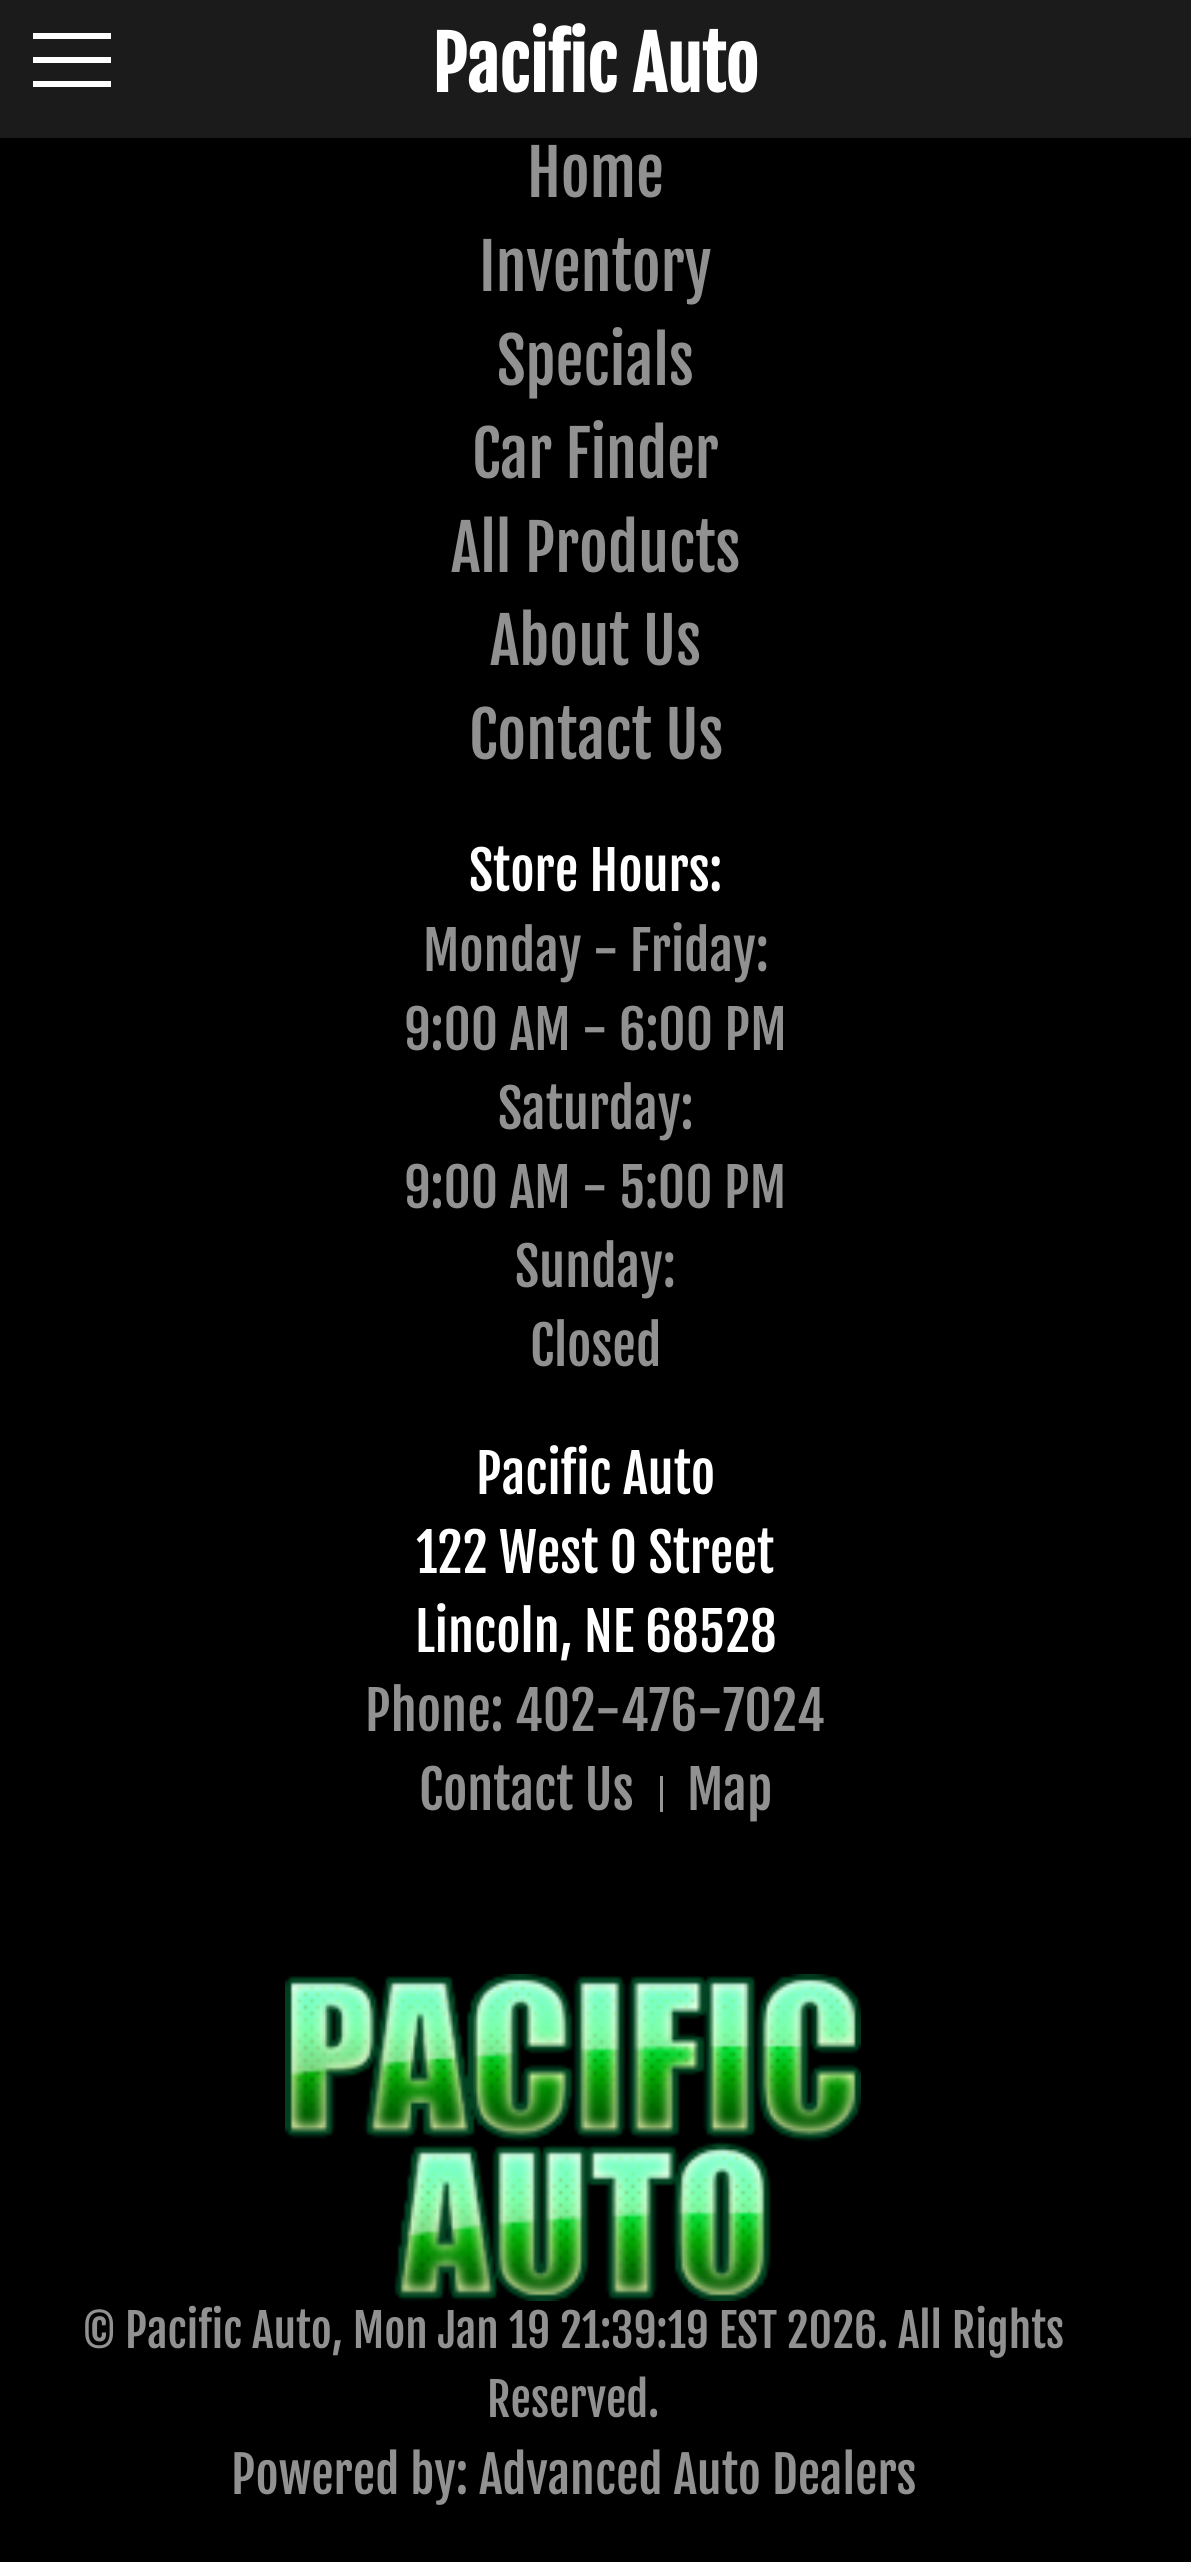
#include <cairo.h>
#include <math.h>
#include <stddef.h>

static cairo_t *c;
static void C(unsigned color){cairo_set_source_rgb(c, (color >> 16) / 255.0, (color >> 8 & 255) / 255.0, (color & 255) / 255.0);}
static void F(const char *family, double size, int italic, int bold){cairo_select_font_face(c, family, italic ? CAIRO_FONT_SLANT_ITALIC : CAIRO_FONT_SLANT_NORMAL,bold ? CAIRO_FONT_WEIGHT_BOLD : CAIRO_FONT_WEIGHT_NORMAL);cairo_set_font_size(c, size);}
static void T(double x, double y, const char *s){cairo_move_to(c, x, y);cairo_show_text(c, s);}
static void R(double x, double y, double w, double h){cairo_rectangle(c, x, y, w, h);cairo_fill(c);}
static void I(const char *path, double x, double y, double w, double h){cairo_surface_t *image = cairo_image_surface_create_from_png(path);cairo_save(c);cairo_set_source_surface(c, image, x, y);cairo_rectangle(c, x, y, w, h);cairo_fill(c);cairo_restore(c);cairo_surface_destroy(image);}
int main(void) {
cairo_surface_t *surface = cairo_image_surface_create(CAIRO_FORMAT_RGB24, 1191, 2562);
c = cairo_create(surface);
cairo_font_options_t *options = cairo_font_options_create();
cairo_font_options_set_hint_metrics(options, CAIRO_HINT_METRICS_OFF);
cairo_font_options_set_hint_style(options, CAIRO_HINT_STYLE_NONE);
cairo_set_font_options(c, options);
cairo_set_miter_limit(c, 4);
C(0x000000);
cairo_paint(c);
C(0x1b1b1b);
R(0,0,1191,138);
C(0xffffff);
R(33,33,78,6);
R(33,57,78,6);
R(33,81,78,6);
F("Fjalla One",72,0,1);
T(432,92,"Pacific Auto");
F("Fjalla One",62.5,0,0);
C(0x919191);
T(527,197,"Home");
T(479,291,"Inventory");
T(497,385,"Specials");
T(472,478,"Car Finder");
T(451,572,"All Products");
T(490,665,"About Us");
T(469,759,"Contact Us");
F("Fjalla One",52.75,0,0);
C(0xffffff);
T(469,891,"Store Hours:");
C(0x919191);
T(423,971,"Monday - Friday:");
T(404,1050,"9:00 AM - 6:00 PM");
T(498,1129,"Saturday:");
T(404,1208,"9:00 AM - 5:00 PM");
T(515,1287,"Sunday:");
T(530,1366,"Closed");
C(0xffffff);
T(476,1494,"Pacific Auto");
T(416,1573,"122 West O Street");
T(415,1652,"Lincoln, NE 68528");
C(0x919191);
T(365,1731,"Phone: 402-476-7024");
T(419,1810,"Contact Us");
C(0x959595);
R(660,1776,3,36);
C(0x919191);
T(687,1810,"Map");
I("1.png",285,1974,576,327);
F("Fjalla One",45.6,0,0);
T(83,2348,"© Pacific Auto, Mon Jan 19 21:39:19 EST 2026. All Rights");
T(487,2417,"Reserved.");
F("Fjalla One",50.2,0,0);
T(231,2494,"Powered by: Advanced Auto Dealers");
cairo_surface_write_to_png(surface, "o.png");
cairo_font_options_destroy(options);
cairo_destroy(c);
cairo_surface_destroy(surface);
return 0;
}
